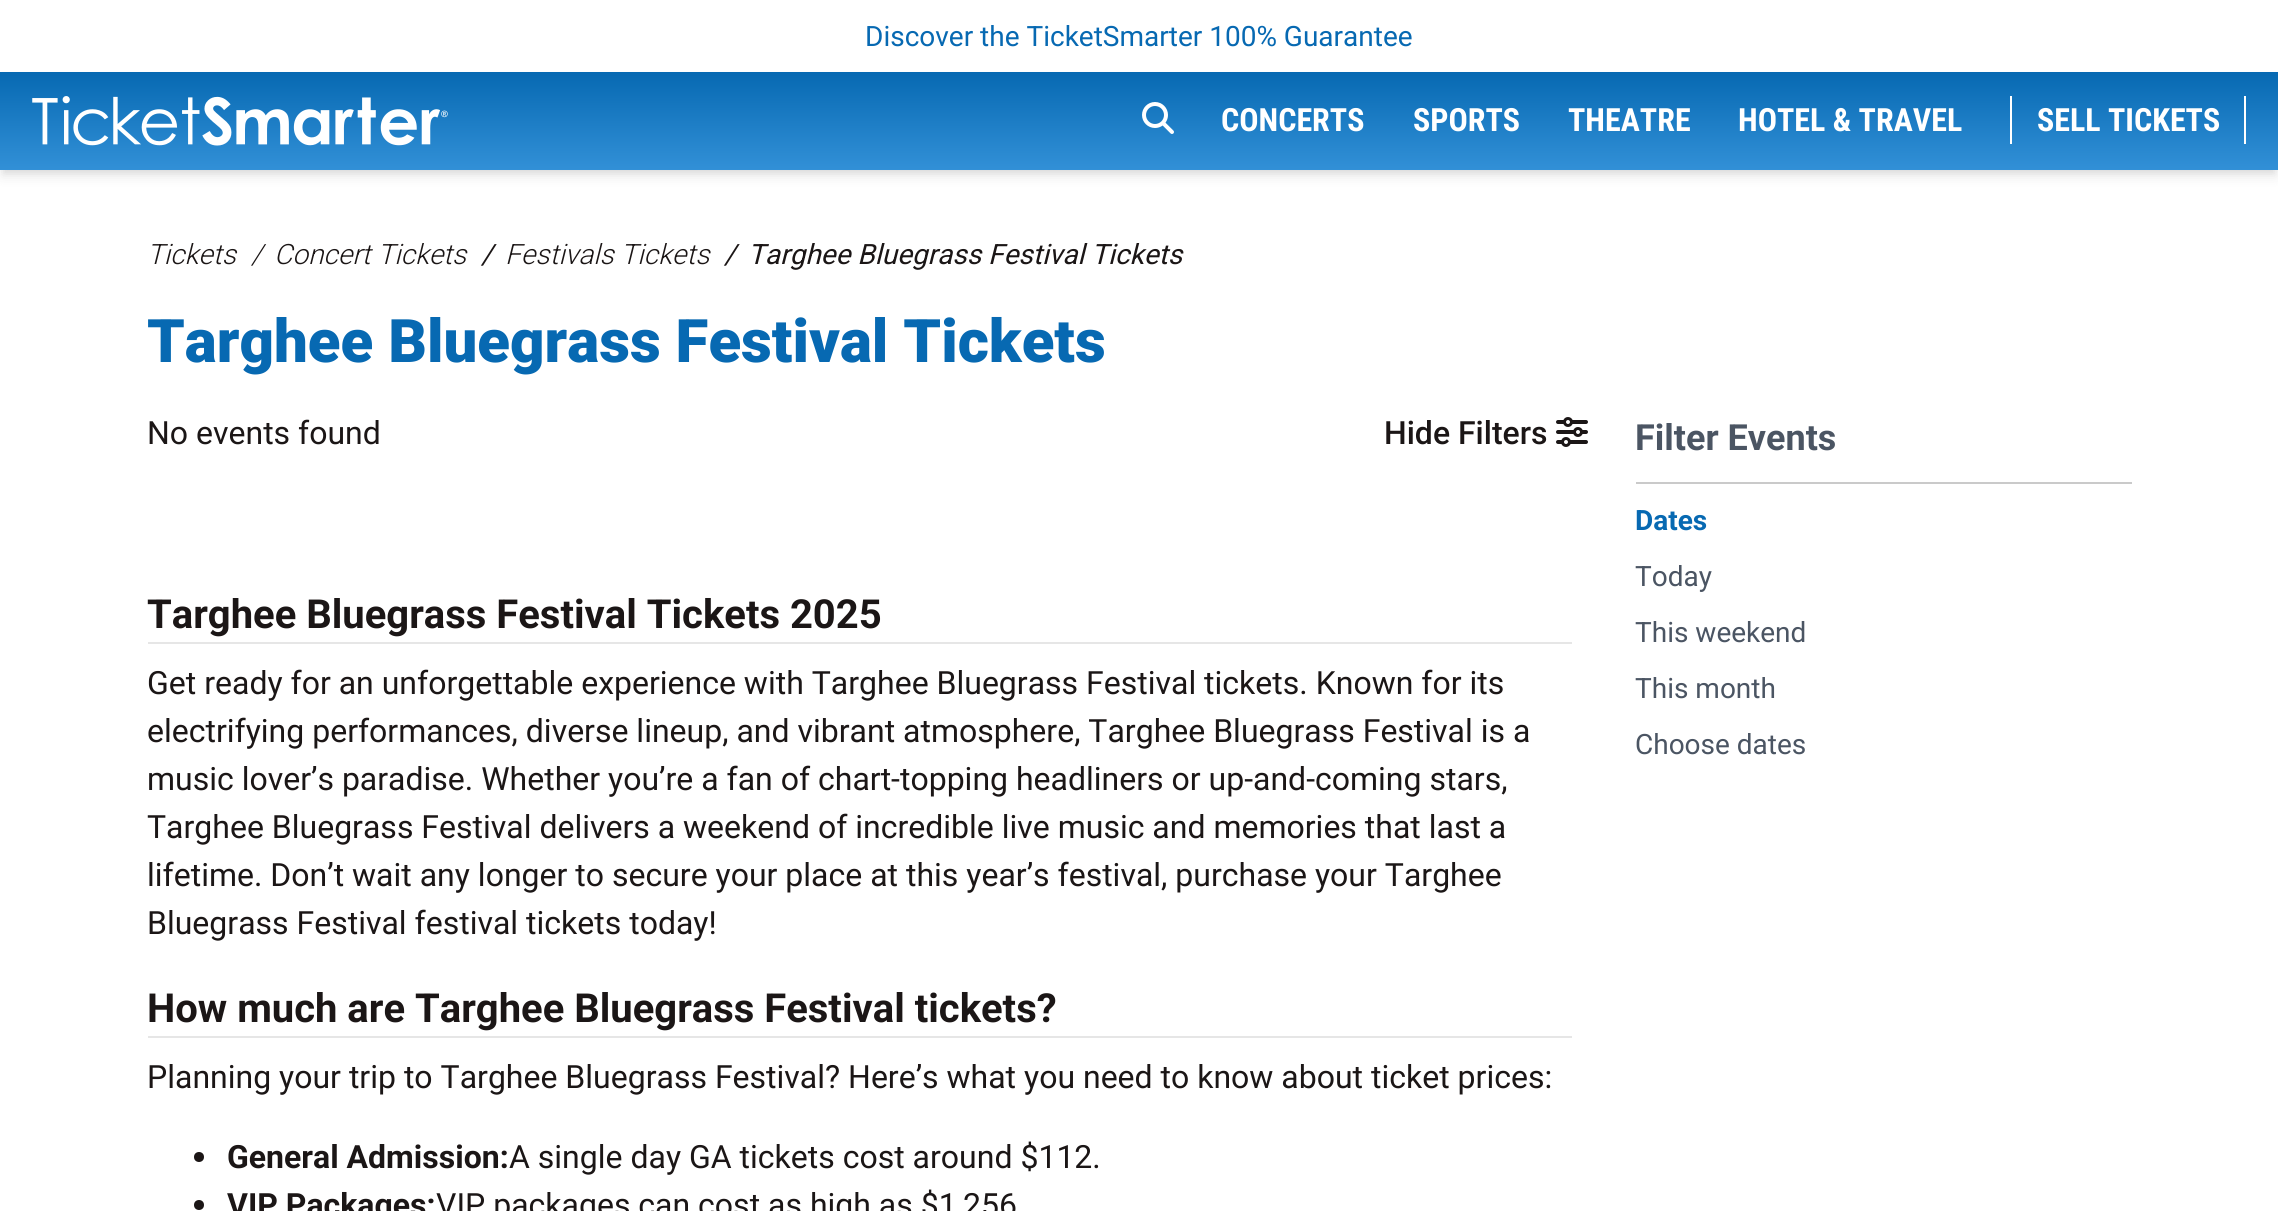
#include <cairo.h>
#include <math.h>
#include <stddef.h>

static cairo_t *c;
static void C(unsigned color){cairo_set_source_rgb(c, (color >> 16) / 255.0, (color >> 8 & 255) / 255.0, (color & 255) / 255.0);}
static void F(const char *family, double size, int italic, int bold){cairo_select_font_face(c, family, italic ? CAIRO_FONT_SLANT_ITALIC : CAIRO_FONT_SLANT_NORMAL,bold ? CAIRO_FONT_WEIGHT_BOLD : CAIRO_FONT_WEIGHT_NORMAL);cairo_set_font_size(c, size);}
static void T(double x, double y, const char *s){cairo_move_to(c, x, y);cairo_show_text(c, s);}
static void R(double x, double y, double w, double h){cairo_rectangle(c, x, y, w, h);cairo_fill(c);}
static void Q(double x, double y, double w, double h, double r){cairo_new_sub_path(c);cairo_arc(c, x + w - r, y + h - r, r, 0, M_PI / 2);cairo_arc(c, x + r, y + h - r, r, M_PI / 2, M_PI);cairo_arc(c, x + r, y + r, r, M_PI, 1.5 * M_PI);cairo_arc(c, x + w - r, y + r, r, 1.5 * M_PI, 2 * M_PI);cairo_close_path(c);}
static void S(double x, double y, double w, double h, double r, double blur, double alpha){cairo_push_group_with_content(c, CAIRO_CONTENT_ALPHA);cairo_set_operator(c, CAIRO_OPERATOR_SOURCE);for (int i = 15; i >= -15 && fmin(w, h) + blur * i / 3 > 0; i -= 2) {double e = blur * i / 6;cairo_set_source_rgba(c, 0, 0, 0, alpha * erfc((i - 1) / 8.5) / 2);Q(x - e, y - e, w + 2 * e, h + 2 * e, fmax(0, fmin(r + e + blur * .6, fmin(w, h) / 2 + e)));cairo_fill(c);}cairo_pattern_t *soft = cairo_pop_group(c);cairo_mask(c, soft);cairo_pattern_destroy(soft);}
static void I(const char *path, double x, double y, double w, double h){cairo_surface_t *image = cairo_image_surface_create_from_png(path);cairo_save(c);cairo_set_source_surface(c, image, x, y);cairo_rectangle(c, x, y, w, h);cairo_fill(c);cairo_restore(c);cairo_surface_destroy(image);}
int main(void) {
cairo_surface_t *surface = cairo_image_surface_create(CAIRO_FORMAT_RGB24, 2278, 1211);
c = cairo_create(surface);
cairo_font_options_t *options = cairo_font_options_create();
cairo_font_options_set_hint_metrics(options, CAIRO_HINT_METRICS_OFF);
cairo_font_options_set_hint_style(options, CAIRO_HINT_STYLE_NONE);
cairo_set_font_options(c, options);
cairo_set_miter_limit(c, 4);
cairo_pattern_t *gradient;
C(0xffffff);
cairo_paint(c);
F("Roboto",28,0,0);
C(0x0769b2);
T(865,46,"Discover the TicketSmarter 100% Guarantee");
C(0x000000);
S(4,80,2270,90,0,4,.1);
S(2,82,2274,94,0,6,.1);
gradient = cairo_pattern_create_linear(1139,72,1139,170);
cairo_pattern_add_color_stop_rgba(gradient,0,0.027,0.412,0.698,1);
cairo_pattern_add_color_stop_rgba(gradient,1,0.196,0.565,0.843,1);
cairo_set_source(c,gradient);
cairo_pattern_destroy(gradient);
R(0,72,2278,98);
I("1.png",32,96,416,50);
I("2.png",1142,102,32,32);
F("Roboto Condensed",32,0,1);
C(0xffffff);
T(1221,131,"CONCERTS");
T(1413,131,"SPORTS");
T(1568,131,"THEATRE");
T(1738,131,"HOTEL & TRAVEL");
R(2244,96,2,48);
R(2010,96,2,48);
T(2037,131,"SELL TICKETS");
F("Roboto Light",28,1,0);
C(0x1b1616);
T(147,264,"Tickets");
T(251,264,"/");
T(274,264,"Concert Tickets");
F("Roboto",28,1,0);
T(481,264,"/");
F("Roboto Light",28,1,0);
T(505,264,"Festivals Tickets");
F("Roboto",28,1,0);
T(724,264,"/");
T(748,264,"Targhee Bluegrass Festival Tickets");
F("Roboto Black",60,0,0);
C(0x0769b2);
T(147,362,"Targhee Bluegrass Festival Tickets");
F("Roboto",32,0,0);
C(0x1b1616);
T(147,444,"No events found");
C(0xcacaca);
R(1636,482,496,2);
F("Roboto",36,0,1);
C(0x4b5563);
T(1635,450,"Filter Events");
F("Roboto",28,0,1);
C(0x0769b2);
T(1635,530,"Dates");
F("Roboto",28,0,0);
C(0x4b5563);
T(1635,586,"Today");
T(1635,642,"This weekend");
T(1635,698,"This month");
T(1635,754,"Choose dates");
F("Roboto Medium",32,0,0);
C(0x1b1616);
T(1384,444,"Hide Filters");
I("3.png",1556,417,32,30);
C(0xe6e6e6);
R(148,642,1424,2);
F("Roboto",40,0,1);
C(0x1b1616);
T(147,628,"Targhee Bluegrass Festival Tickets 2025");
F("Roboto",32,0,0);
T(147,694,"Get ready for an unforgettable experience with Targhee Bluegrass Festival tickets. Known for its");
T(147,742,"electrifying performances, diverse lineup, and vibrant atmosphere, Targhee Bluegrass Festival is a");
T(147,790,"music lover’s paradise. Whether you’re a fan of chart-topping headliners or up-and-coming stars,");
T(147,838,"Targhee Bluegrass Festival delivers a weekend of incredible live music and memories that last a");
T(147,886,"lifetime. Don’t wait any longer to secure your place at this year’s festival, purchase your Targhee");
T(147,934,"Bluegrass Festival festival tickets today!");
C(0xe6e6e6);
R(148,1036,1424,2);
F("Roboto",40,0,1);
C(0x1b1616);
T(147,1022,"How much are Targhee Bluegrass Festival tickets?");
F("Roboto",32,0,0);
T(147,1088,"Planning your trip to Targhee Bluegrass Festival? Here’s what you need to know about ticket prices:");
cairo_new_path(c);
cairo_arc(c,199,1157,5,0,2 * M_PI);
cairo_fill(c);
F("Roboto",32,0,1);
T(227,1168,"General Admission:");
F("Roboto",32,0,0);
T(509,1168,"A single day GA tickets cost around $112.");
cairo_new_path(c);
cairo_arc(c,199,1205,5,0,2 * M_PI);
cairo_fill(c);
F("Roboto",32,0,1);
T(227,1216,"VIP Packages:");
F("Roboto",32,0,0);
T(436,1216,"VIP packages can cost as high as $1,256");
cairo_surface_write_to_png(surface, "o.png");
cairo_font_options_destroy(options);
cairo_destroy(c);
cairo_surface_destroy(surface);
return 0;
}
